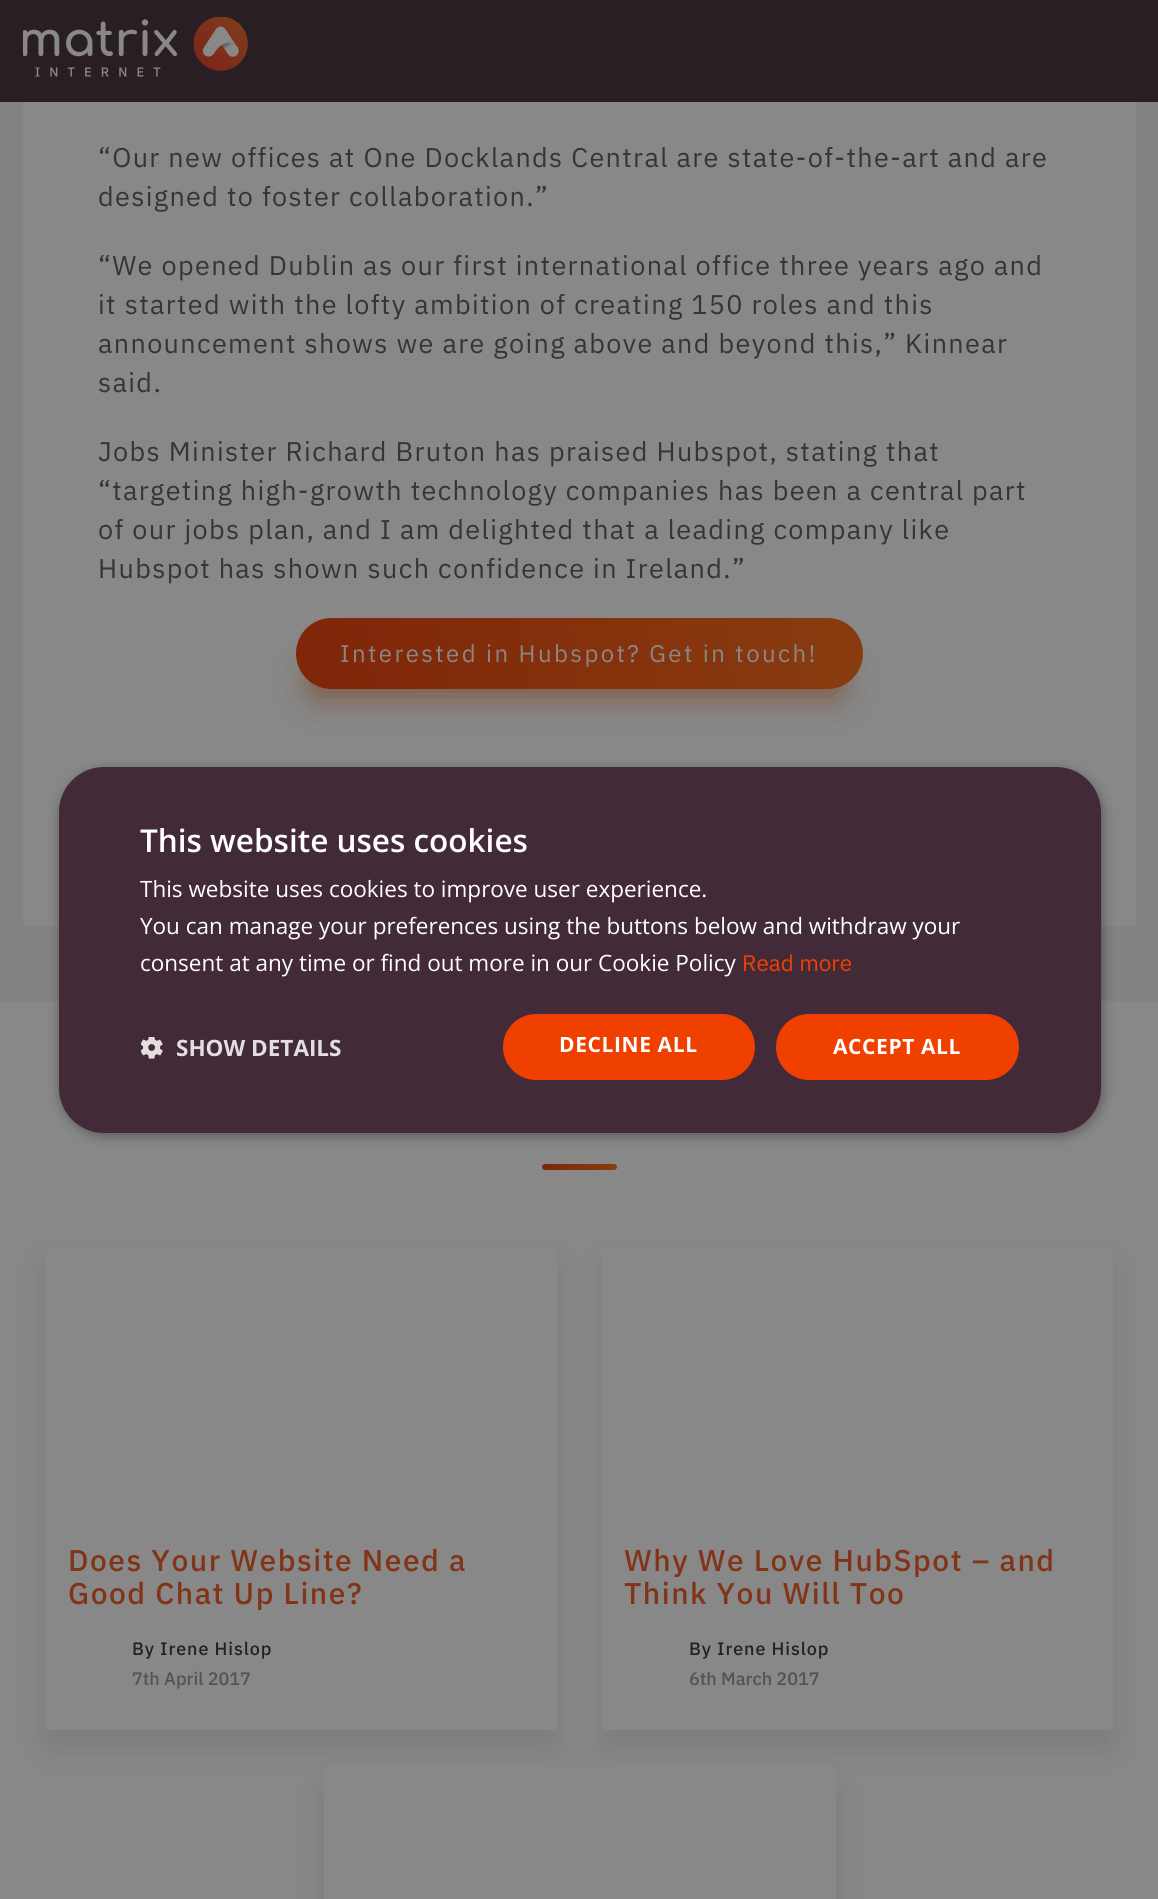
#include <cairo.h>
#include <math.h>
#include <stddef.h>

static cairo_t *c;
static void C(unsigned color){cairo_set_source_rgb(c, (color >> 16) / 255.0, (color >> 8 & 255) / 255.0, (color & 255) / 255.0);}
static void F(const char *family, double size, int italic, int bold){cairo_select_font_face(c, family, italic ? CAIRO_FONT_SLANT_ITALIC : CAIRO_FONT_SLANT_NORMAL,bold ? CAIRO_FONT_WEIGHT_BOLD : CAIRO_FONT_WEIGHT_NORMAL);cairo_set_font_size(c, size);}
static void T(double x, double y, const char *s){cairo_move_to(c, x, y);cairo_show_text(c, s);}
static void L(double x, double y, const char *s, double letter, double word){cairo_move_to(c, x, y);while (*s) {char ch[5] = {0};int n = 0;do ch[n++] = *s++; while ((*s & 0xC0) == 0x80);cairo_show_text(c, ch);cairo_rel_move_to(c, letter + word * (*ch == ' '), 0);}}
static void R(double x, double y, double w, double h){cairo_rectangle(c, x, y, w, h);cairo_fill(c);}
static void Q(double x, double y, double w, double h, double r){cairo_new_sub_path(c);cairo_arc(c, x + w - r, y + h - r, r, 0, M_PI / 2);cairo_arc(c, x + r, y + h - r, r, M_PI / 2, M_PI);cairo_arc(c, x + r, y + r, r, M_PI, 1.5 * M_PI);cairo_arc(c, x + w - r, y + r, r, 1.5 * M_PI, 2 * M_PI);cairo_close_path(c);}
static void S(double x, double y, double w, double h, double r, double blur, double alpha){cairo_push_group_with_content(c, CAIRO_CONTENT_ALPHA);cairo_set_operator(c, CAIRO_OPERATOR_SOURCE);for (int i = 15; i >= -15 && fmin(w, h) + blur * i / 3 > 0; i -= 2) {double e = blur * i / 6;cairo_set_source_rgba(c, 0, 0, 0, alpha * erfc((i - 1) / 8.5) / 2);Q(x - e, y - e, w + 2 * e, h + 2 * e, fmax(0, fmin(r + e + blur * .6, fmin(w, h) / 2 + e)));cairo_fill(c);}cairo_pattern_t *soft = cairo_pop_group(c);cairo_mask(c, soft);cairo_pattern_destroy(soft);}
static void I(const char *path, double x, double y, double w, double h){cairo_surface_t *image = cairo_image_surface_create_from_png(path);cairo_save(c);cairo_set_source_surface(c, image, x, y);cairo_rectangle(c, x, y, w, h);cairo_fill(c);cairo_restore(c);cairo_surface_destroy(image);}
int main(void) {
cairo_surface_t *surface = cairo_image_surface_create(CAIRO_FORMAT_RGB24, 1158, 1899);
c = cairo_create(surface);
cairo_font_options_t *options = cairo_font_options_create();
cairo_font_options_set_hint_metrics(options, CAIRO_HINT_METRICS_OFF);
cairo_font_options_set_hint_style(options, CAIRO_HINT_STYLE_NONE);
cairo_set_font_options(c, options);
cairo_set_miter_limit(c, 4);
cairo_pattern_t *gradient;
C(0x838283);
cairo_paint(c);
C(0x888888);
Q(23,-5,1113,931,5);
cairo_fill(c);
C(0x2a1e25);
R(0,0,1158,102);
I("1.png",23,17,225,60);
F("IBM Plex Sans",27,0,0);
C(0x393238);
L(98,167,"“Our new offices at One Docklands Central are state-of-the-art and are",1.35,0);
L(98,206,"designed to foster collaboration.”",1.35,0);
L(98,275,"“We opened Dublin as our first international office three years ago and",1.35,0);
L(98,314,"it started with the lofty ambition of creating 150 roles and this",1.35,0);
L(98,353,"announcement shows we are going above and beyond this,” Kinnear",1.35,0);
L(98,392,"said.",1.35,0);
L(98,461,"Jobs Minister Richard Bruton has praised Hubspot, stating that",1.35,0);
L(98,500,"“targeting high-growth technology companies has been a central part",1.35,0);
L(98,539,"of our jobs plan, and I am delighted that a leading company like",1.35,0);
L(98,578,"Hubspot has shown such confidence in Ireland.”",1.35,0);
C(0x77300f);
S(312,665,528,31,15.5,16.5,.6);
gradient = cairo_pattern_create_linear(862,613,296,693);
cairo_pattern_add_color_stop_rgba(gradient,.05,0.533,0.231,0.059,1);
cairo_pattern_add_color_stop_rgba(gradient,.97,0.502,0.149,0.035,1);
cairo_set_source(c,gradient);
cairo_pattern_destroy(gradient);
Q(296,618,567,71,35.5);
cairo_fill(c);
F("IBM Plex Sans",24,0,0);
C(0x888888);
L(340,662,"Interested in Hubspot? Get in touch!",2.4,0);
R(0,1001,1158,898);
gradient = cairo_pattern_create_linear(616,1162,542,1172);
cairo_pattern_add_color_stop_rgba(gradient,.05,0.533,0.231,0.059,1);
cairo_pattern_add_color_stop_rgba(gradient,.97,0.502,0.149,0.035,1);
cairo_set_source(c,gradient);
cairo_pattern_destroy(gradient);
Q(542,1164,75,6,3);
cairo_fill(c);
C(0x090909);
S(45,1263,512,485,5,15,.1);
C(0x888888);
Q(45,1245,512,485,5);
cairo_fill(c);
F("IBM Plex Sans Medium",30,0,0);
C(0x813418);
L(68,1571,"Does Your Website Need a",1.5,0);
L(68,1604,"Good Chat Up Line?",1.5,0);
F("IBM Plex Sans Medium",18,0,0);
C(0x2a1e25);
L(132,1655,"By Irene Hislop",.9,0);
C(0x575054);
T(132,1685,"7th April 2017");
C(0x090909);
S(602,1263,511,485,5,15,.1);
C(0x888888);
Q(602,1245,511,485,5);
cairo_fill(c);
F("IBM Plex Sans Medium",30,0,0);
C(0x813418);
L(624,1571,"Why We Love HubSpot – and",1.5,0);
L(624,1604,"Think You Will Too",1.5,0);
F("IBM Plex Sans Medium",18,0,0);
C(0x2a1e25);
L(689,1655,"By Irene Hislop",.9,0);
C(0x575054);
T(689,1685,"6th March 2017");
C(0x090909);
S(324,1785,512,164,5,15,.1);
C(0x888888);
Q(324,1767,512,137,5);
cairo_fill(c);
C(0x000000);
S(60,770,1043,366,45,6,.35);
C(0x432a38);
Q(59,767,1042,366,45);
cairo_fill(c);
F("Open Sans SemiBold",31.5,0,0);
C(0xffffff);
T(140,852,"This website uses cookies");
F("Open Sans",22.5,0,0);
T(140,897,"This website uses cookies to improve user experience.");
T(140,934,"You can manage your preferences using the buttons below and withdraw your");
T(140,971,"consent at any time or find out more in our Cookie Policy");
F("IBM Plex Sans",22.5,0,0);
C(0xf04000);
T(742,971,"Read more");
I("2.png",141,1037,22,22);
F("Open Sans",22.5,0,1);
C(0xe3dfe1);
T(176,1056,"SHOW DETAILS");
C(0xf04000);
Q(503,1014,252,66,33);
cairo_fill(c);
F("Open Sans",21,0,1);
C(0xffffff);
L(559,1052,"DECLINE ALL",.6,0);
C(0xf04000);
Q(776,1014,243,66,33);
cairo_fill(c);
C(0xffffff);
L(833,1054,"ACCEPT ALL",.6,0);
cairo_surface_write_to_png(surface, "o.png");
cairo_font_options_destroy(options);
cairo_destroy(c);
cairo_surface_destroy(surface);
return 0;
}
